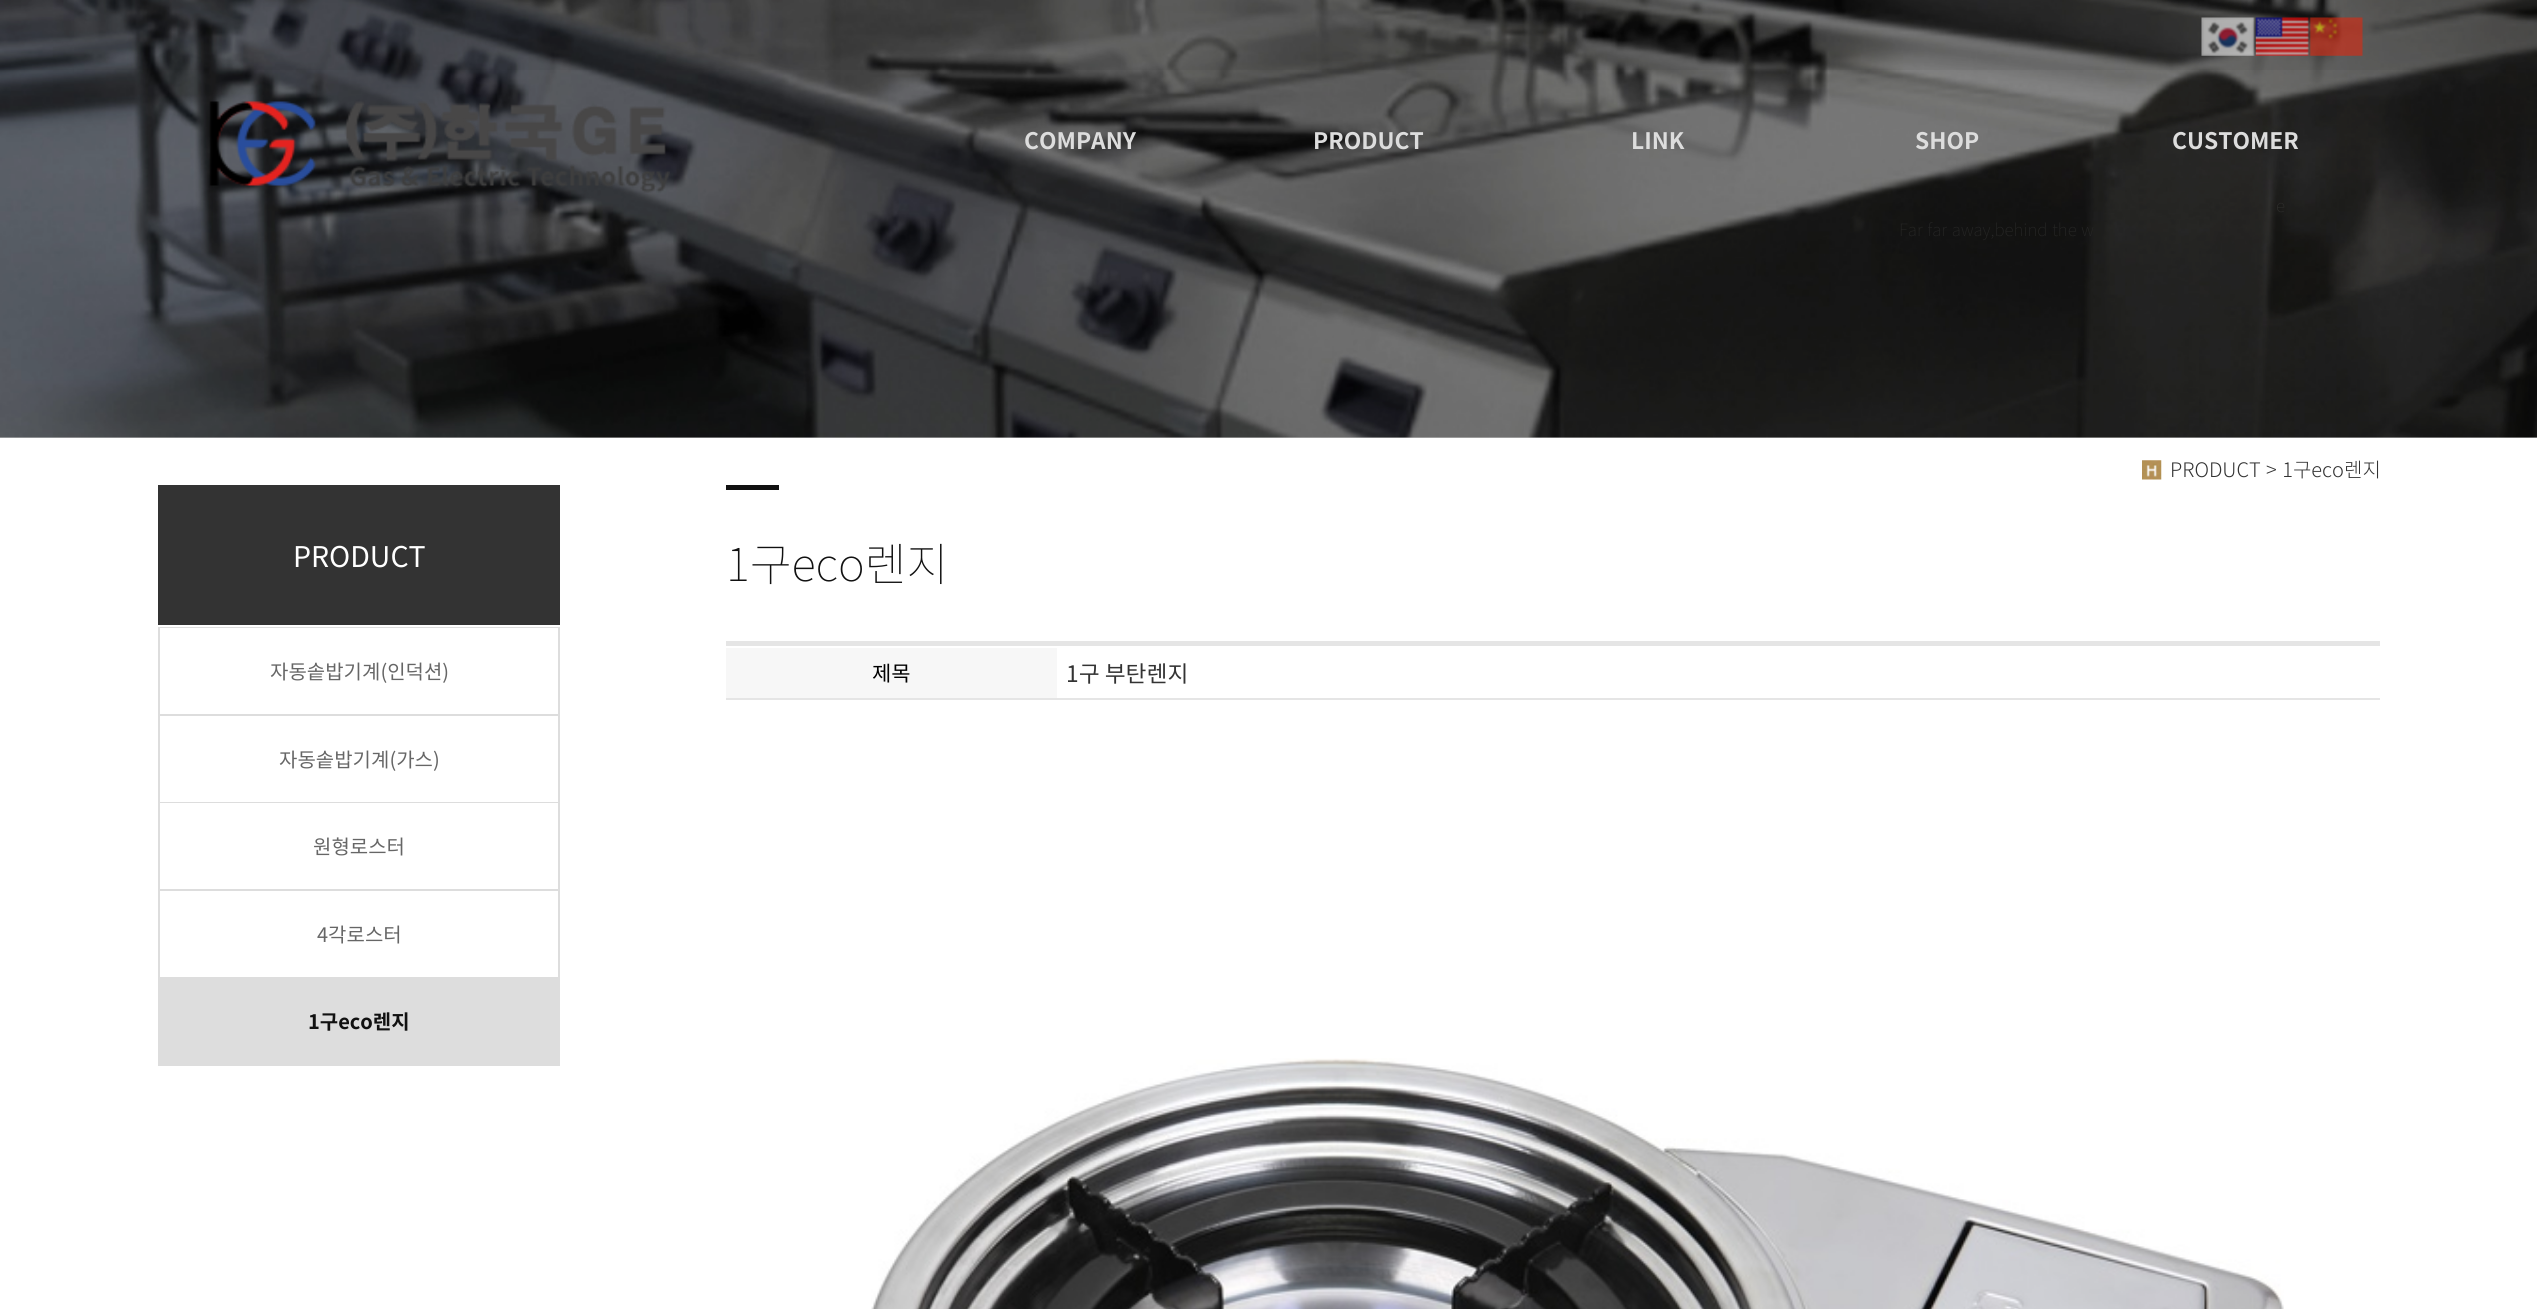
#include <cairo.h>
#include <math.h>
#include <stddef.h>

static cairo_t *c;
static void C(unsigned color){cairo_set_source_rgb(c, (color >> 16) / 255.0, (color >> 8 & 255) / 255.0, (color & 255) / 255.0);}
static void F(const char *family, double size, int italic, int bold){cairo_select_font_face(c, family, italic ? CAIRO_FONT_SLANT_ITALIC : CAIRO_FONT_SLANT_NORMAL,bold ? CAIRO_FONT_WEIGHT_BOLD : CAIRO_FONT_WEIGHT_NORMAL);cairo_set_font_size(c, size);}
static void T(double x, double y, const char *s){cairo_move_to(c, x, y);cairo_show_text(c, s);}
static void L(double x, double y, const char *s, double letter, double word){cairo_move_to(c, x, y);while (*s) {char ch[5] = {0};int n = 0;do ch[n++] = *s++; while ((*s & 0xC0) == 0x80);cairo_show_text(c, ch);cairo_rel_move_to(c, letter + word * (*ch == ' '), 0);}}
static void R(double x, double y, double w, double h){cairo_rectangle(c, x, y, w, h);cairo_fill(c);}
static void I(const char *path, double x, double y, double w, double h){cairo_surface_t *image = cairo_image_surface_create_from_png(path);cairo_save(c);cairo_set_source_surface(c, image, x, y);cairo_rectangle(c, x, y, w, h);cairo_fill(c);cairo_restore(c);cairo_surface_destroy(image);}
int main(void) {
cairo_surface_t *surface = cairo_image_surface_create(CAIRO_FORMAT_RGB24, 2537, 1309);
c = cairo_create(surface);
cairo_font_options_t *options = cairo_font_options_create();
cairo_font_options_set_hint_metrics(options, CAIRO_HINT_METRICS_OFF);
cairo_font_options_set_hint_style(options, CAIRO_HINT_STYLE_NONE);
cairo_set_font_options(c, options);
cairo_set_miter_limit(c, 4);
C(0xffffff);
cairo_paint(c);
C(0xcccccc);
R(0,437,2537,1);
I("5.png",0,0,2537,438);
cairo_set_source_rgba(c,0,0,0,0.05);
R(0,0,2537,70);
I("1.png",2201,17,54,39);
I("2.png",2255,17,54,39);
I("3.png",2309,17,54,39);
I("4.png",209,101,461,92);
F("Noto Sans KR",22.75,0,1);
C(0xdddddd);
T(1024,149,"COMPANY");
T(1313,149,"PRODUCT");
T(1631,149,"LINK");
T(1915,149,"SHOP");
T(2172,149,"CUSTOMER");
F("Noto Sans KR Thin",17,0,0);
C(0x2e2e2c);
L(2276,212,"e",0,1);
C(0x272726);
L(1899,236,"Far far away,behind the w",0,1);
I("6.png",2142,460,20,20);
F("Noto Sans KR Light",20,0,0);
C(0x333333);
L(2170,477,"PRODUCT > 1구eco렌지",0,1);
R(158,485,402,140);
F("Noto Sans KR",28.5,0,0);
C(0xffffff);
T(293,567,"PRODUCT");
C(0xdddddd);
R(158,627,402,1);
R(558,628,2,350);
R(158,714,402,2);
R(158,628,2,88);
F("Noto Sans KR",20,0,0);
C(0x666666);
T(270,679,"자동솥밥기계(인덕션)");
C(0xdddddd);
R(158,802,402,1);
R(158,716,2,87);
C(0x666666);
T(279,767,"자동솥밥기계(가스)");
C(0xdddddd);
R(158,889,402,2);
R(158,803,2,88);
C(0x666666);
T(313,854,"원형로스터");
C(0xdddddd);
R(158,977,402,89);
R(158,891,2,87);
C(0x666666);
T(317,942,"4각로스터");
F("Noto Sans KR",20,0,1);
C(0x111111);
T(308,1029,"1구eco렌지");
R(726,485,53,5);
F("Noto Sans KR Thin",45.5,0,0);
T(726,581,"1구eco렌지");
C(0xe5e5e5);
R(726,641,1654,5);
C(0xf7f7f7);
R(726,648,331,50);
F("Noto Sans KR",21,0,0);
C(0x000000);
T(872,681,"제목");
F("Noto Sans KR",22.75,0,0);
C(0x333333);
T(1066,682,"1구 부탄렌지");
C(0xe5e5e5);
R(726,698,1654,2);
I("7.png",871,1058,1413,251);
cairo_surface_write_to_png(surface, "o.png");
cairo_font_options_destroy(options);
cairo_destroy(c);
cairo_surface_destroy(surface);
return 0;
}
